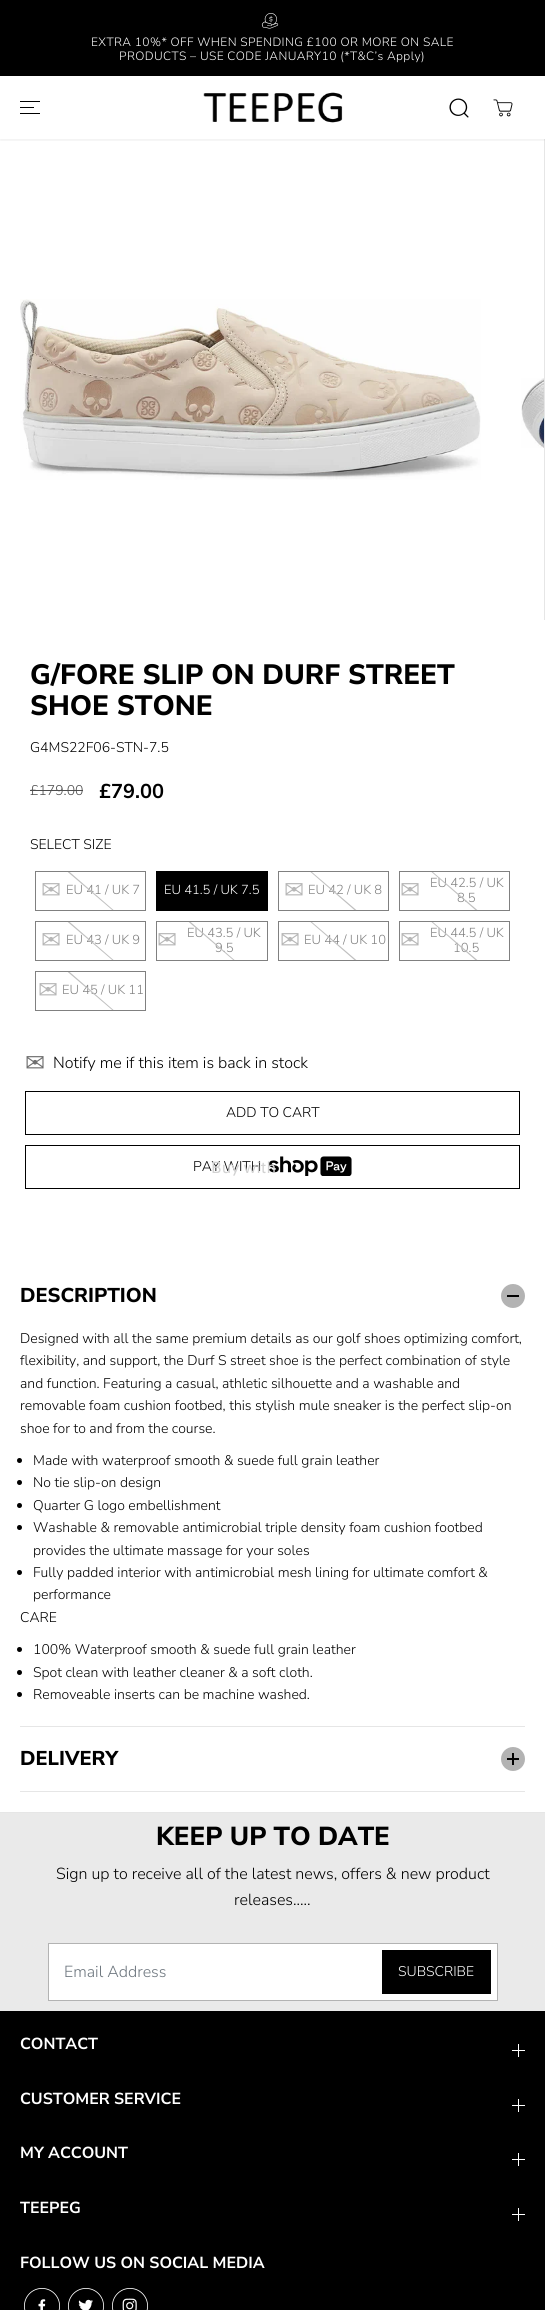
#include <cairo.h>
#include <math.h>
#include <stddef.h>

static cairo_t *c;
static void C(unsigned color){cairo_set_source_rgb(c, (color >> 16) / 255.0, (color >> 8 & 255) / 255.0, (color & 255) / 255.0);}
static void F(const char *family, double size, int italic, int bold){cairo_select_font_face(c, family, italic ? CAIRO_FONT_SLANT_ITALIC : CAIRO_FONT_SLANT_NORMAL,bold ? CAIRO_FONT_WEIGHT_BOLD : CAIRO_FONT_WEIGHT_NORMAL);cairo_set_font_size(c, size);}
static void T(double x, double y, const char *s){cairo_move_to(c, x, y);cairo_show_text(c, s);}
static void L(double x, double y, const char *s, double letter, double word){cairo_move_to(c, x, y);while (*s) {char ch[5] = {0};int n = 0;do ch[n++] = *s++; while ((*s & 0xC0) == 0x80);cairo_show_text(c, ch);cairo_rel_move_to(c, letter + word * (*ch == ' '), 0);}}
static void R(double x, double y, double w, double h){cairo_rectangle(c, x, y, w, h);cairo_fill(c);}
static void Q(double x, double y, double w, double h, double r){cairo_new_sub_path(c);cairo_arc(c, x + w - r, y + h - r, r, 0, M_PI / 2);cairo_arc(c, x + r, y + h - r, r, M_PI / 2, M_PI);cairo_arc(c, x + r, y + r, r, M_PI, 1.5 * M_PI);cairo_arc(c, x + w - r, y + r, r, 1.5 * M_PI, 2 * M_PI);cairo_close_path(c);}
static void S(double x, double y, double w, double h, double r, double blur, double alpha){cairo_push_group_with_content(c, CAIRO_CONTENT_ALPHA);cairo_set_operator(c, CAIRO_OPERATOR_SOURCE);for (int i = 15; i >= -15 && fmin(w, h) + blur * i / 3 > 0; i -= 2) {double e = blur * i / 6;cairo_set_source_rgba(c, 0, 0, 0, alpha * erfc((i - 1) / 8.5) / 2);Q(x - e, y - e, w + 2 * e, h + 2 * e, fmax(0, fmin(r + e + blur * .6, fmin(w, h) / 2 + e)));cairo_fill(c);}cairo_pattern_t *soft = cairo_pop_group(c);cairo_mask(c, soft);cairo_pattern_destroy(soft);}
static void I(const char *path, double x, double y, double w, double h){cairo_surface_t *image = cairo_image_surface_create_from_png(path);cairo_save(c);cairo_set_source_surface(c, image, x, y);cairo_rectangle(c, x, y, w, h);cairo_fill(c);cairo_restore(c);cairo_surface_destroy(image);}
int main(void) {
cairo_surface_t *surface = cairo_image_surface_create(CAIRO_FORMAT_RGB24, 545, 2310);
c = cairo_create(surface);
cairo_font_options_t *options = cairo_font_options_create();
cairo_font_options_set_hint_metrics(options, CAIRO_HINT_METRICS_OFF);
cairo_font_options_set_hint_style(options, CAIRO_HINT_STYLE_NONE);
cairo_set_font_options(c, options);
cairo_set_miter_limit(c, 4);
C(0xffffff);
cairo_paint(c);
C(0xe6e6e6);
R(544,139,1,481);
cairo_save(c);
cairo_rectangle(c,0,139,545,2);
cairo_clip(c);
C(0x000000);
S(0,78,545,63,0,1,.05);
cairo_restore(c);
C(0x000000);
R(0,0,545,76);
I("1.png",261,13,18,16);
F("Nunito Sans Light",12,0,0);
C(0xffffff);
L(91,46,"EXTRA 10%* OFF WHEN SPENDING £100 OR MORE ON SALE",.4,0);
L(119,60,"PRODUCTS – USE CODE JANUARY10 (*T&C’s Apply)",.4,0);
C(0x000000);
R(20,107,14,1);
R(20,101,20,1);
R(20,113,20,1);
I("2.png",203,92,140,31);
I("3.png",449,98,20,20);
I("4.png",493,99,20,18);
C(0xe6e6e6);
R(0,1812,545,1);
I("5.png",20,299,461,181);
I("6.png",521,378,23,70);
F("Nunito Sans ExtraBold",28,0,0);
C(0x000000);
T(30,684,"G/FORE SLIP ON DURF STREET");
T(30,715,"SHOE STONE");
F("Nunito Sans Light",14,0,0);
T(30,752,"G4MS22F06-STN-7.5");
C(0x4d4d4d);
T(30,795,"£179.00");
R(30,790,53,1);
F("Nunito Sans",20,0,1);
C(0x000000);
T(99,798,"£79.00");
F("Nunito Sans Light",14,0,0);
T(30,849,"SELECT SIZE");
cairo_rectangle(c,35.5,871.5,110,39);
C(0x808080);
cairo_set_line_width(c,1);
cairo_stroke(c);
F("DejaVu Sans",24,0,0);
C(0xb7b7b7);
T(41,898,"✉");
F("Nunito Sans Light",13,0,0);
C(0x808080);
T(66,894,"EU 41 / UK 7");
cairo_save(c);
cairo_rectangle(c,36,872,109,38);
cairo_clip(c);
C(0xbfbfbf);
cairo_new_path(c);
cairo_move_to(c,50,855);
cairo_line_to(c,132,926);
cairo_line_to(c,132,927);
cairo_line_to(c,49,856);
cairo_close_path(c);
cairo_fill(c);
cairo_restore(c);
C(0x000000);
R(156,871,112,40);
C(0xffffff);
T(164,894,"EU 41.5 / UK 7.5");
cairo_rectangle(c,278.5,871.5,110,39);
C(0x808080);
cairo_stroke(c);
F("DejaVu Sans",24,0,0);
C(0xb7b7b7);
T(284,898,"✉");
F("Nunito Sans Light",13,0,0);
C(0x808080);
T(308,894,"EU 42 / UK 8");
cairo_save(c);
cairo_rectangle(c,279,872,109,38);
cairo_clip(c);
C(0xbfbfbf);
cairo_new_path(c);
cairo_move_to(c,292,855);
cairo_line_to(c,375,926);
cairo_line_to(c,374,927);
cairo_line_to(c,292,856);
cairo_close_path(c);
cairo_fill(c);
cairo_restore(c);
cairo_rectangle(c,399.5,871.5,110,39);
cairo_stroke(c);
T(430,887,"EU 42.5 / UK");
T(457,902,"8.5");
cairo_save(c);
cairo_rectangle(c,400,872,109,38);
cairo_clip(c);
C(0xbfbfbf);
cairo_new_path(c);
cairo_move_to(c,413,855);
cairo_line_to(c,496,926);
cairo_line_to(c,495,927);
cairo_line_to(c,413,856);
cairo_close_path(c);
cairo_fill(c);
cairo_restore(c);
F("DejaVu Sans",24,0,0);
C(0xb7b7b7);
T(400,898,"✉");
cairo_rectangle(c,35.5,921.5,110,39);
C(0x808080);
cairo_stroke(c);
C(0xb7b7b7);
T(41,948,"✉");
F("Nunito Sans Light",13,0,0);
C(0x808080);
T(66,944,"EU 43 / UK 9");
cairo_save(c);
cairo_rectangle(c,36,922,109,38);
cairo_clip(c);
C(0xbfbfbf);
cairo_new_path(c);
cairo_move_to(c,50,905);
cairo_line_to(c,132,976);
cairo_line_to(c,132,977);
cairo_line_to(c,49,906);
cairo_close_path(c);
cairo_fill(c);
cairo_restore(c);
cairo_rectangle(c,156.5,921.5,111,39);
cairo_stroke(c);
T(187,937,"EU 43.5 / UK");
T(215,952,"9.5");
cairo_save(c);
cairo_rectangle(c,157,922,110,38);
cairo_clip(c);
C(0xbfbfbf);
cairo_new_path(c);
cairo_move_to(c,171,905);
cairo_line_to(c,253,976);
cairo_line_to(c,253,977);
cairo_line_to(c,170,906);
cairo_close_path(c);
cairo_fill(c);
cairo_restore(c);
F("DejaVu Sans",24,0,0);
C(0xb7b7b7);
T(157,948,"✉");
cairo_rectangle(c,278.5,921.5,110,39);
C(0x808080);
cairo_stroke(c);
C(0xb7b7b7);
T(280,948,"✉");
F("Nunito Sans Light",13,0,0);
C(0x808080);
T(304,944,"EU 44 / UK 10");
cairo_save(c);
cairo_rectangle(c,279,922,109,38);
cairo_clip(c);
C(0xbfbfbf);
cairo_new_path(c);
cairo_move_to(c,292,905);
cairo_line_to(c,375,976);
cairo_line_to(c,374,977);
cairo_line_to(c,292,906);
cairo_close_path(c);
cairo_fill(c);
cairo_restore(c);
cairo_rectangle(c,399.5,921.5,110,39);
cairo_stroke(c);
T(430,937,"EU 44.5 / UK");
T(453,952,"10.5");
cairo_save(c);
cairo_rectangle(c,400,922,109,38);
cairo_clip(c);
C(0xbfbfbf);
cairo_new_path(c);
cairo_move_to(c,413,905);
cairo_line_to(c,496,976);
cairo_line_to(c,495,977);
cairo_line_to(c,413,906);
cairo_close_path(c);
cairo_fill(c);
cairo_restore(c);
F("DejaVu Sans",24,0,0);
C(0xb7b7b7);
T(400,948,"✉");
cairo_rectangle(c,35.5,971.5,110,39);
C(0x808080);
cairo_stroke(c);
C(0xb7b7b7);
T(38,998,"✉");
F("Nunito Sans Light",13,0,0);
C(0x808080);
T(62,994,"EU 45 / UK 11");
cairo_save(c);
cairo_rectangle(c,36,972,109,38);
cairo_clip(c);
C(0xbfbfbf);
cairo_new_path(c);
cairo_move_to(c,50,955);
cairo_line_to(c,132,1026);
cairo_line_to(c,132,1027);
cairo_line_to(c,49,956);
cairo_close_path(c);
cairo_fill(c);
cairo_restore(c);
F("DejaVu Sans",24,0,0);
C(0x6f6f6f);
T(25,1071,"✉");
F("Nunito Sans Light",16,0,0);
C(0x000000);
T(53,1068,"Notify me if this item is back in stock");
cairo_rectangle(c,25.5,1091.5,494,43);
cairo_stroke(c);
F("Nunito Sans Light",14,0,0);
T(226,1117,"ADD TO CART");
cairo_rectangle(c,25.5,1145.5,494,43);
cairo_stroke(c);
T(193,1171,"PAY WITH");
I("7.png",268,1156,84,20);
F("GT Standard",16,0,0);
C(0xd2d2d2);
T(211,1173,"Buy with");
C(0xe6e6e6);
R(20,1726,505,1);
F("Nunito Sans ExtraBold",20,0,0);
C(0x000000);
T(20,1302,"DESCRIPTION");
C(0xb3b3b3);
cairo_new_path(c);
cairo_arc(c,513,1296,12,0,2 * M_PI);
cairo_fill(c);
C(0x000000);
R(507,1295,12,2);
F("Nunito Sans Light",14,0,0);
T(20,1343,"Designed with all the same premium details as our golf shoes optimizing comfort,");
T(20,1365,"flexibility, and support, the Durf S street shoe is the perfect combination of style");
T(20,1388,"and function. Featuring a casual, athletic silhouette and a washable and");
T(20,1410,"removable foam cushion footbed, this stylish mule sneaker is the perfect slip-on");
T(20,1433,"shoe for to and from the course.");
cairo_new_path(c);
cairo_arc(c,19.5,1460.5,2.5,0,2 * M_PI);
cairo_fill(c);
T(33,1465,"Made with waterproof smooth & suede full grain leather");
cairo_new_path(c);
cairo_arc(c,19.5,1482.5,2.5,0,2 * M_PI);
cairo_fill(c);
T(33,1487,"No tie slip-on design");
cairo_new_path(c);
cairo_arc(c,19.5,1505.5,2.5,0,2 * M_PI);
cairo_fill(c);
T(33,1510,"Quarter G logo embellishment");
cairo_new_path(c);
cairo_arc(c,19.5,1527.5,2.5,0,2 * M_PI);
cairo_fill(c);
T(33,1532,"Washable & removable antimicrobial triple density foam cushion footbed");
T(33,1555,"provides the ultimate massage for your soles");
cairo_new_path(c);
cairo_arc(c,19.5,1572.5,2.5,0,2 * M_PI);
cairo_fill(c);
T(33,1577,"Fully padded interior with antimicrobial mesh lining for ultimate comfort &");
T(33,1599,"performance");
T(20,1622,"CARE");
cairo_new_path(c);
cairo_arc(c,19.5,1649.5,2.5,0,2 * M_PI);
cairo_fill(c);
T(33,1654,"100% Waterproof smooth & suede full grain leather");
cairo_new_path(c);
cairo_arc(c,19.5,1672.5,2.5,0,2 * M_PI);
cairo_fill(c);
T(33,1677,"Spot clean with leather cleaner & a soft cloth.");
cairo_new_path(c);
cairo_arc(c,19.5,1694.5,2.5,0,2 * M_PI);
cairo_fill(c);
T(33,1699,"Removeable inserts can be machine washed.");
C(0xe6e6e6);
R(20,1791,505,1);
F("Nunito Sans ExtraBold",20,0,0);
C(0x000000);
T(20,1765,"DELIVERY");
C(0xb3b3b3);
cairo_new_path(c);
cairo_arc(c,513,1759,12,0,2 * M_PI);
cairo_fill(c);
C(0x000000);
R(512,1753,2,12);
R(507,1758,12,2);
C(0xeaeaea);
R(0,1813,545,198);
F("Nunito Sans ExtraBold",26,0,0);
C(0x000000);
T(156,1845,"KEEP UP TO DATE");
F("Nunito Sans Light",16,0,0);
T(56,1879,"Sign up to receive all of the latest news, offers & new product");
T(234,1905,"releases.....");
C(0xffffff);
cairo_rectangle(c,48.5,1943.5,449,57);
cairo_fill_preserve(c);
C(0xb3b3b3);
cairo_stroke(c);
C(0x6c757d);
T(64,1977,"Email Address");
C(0x000000);
R(382,1950,109,44);
F("Nunito Sans Light",14,0,0);
C(0xffffff);
T(398,1976,"SUBSCRIBE");
C(0x000000);
R(0,2011,545,299);
F("Nunito Sans",16,0,1);
C(0xffffff);
T(20,2049,"CONTACT");
R(518,2044,1,13);
R(512,2050,13,1);
T(20,2104,"CUSTOMER SERVICE");
R(518,2099,1,13);
R(512,2105,13,1);
T(20,2158,"MY ACCOUNT");
R(518,2153,1,13);
R(512,2159,13,1);
T(20,2213,"TEEPEG");
R(518,2208,1,13);
R(512,2214,13,1);
T(20,2268,"FOLLOW US ON SOCIAL MEDIA");
I("8.png",38,2299,8,11);
cairo_arc(c,42,2306,17.6,0,2 * M_PI);
cairo_set_line_width(c,.8);
cairo_stroke(c);
I("9.png",78,2299,15,11);
cairo_arc(c,86,2306,17.6,0,2 * M_PI);
cairo_stroke(c);
I("10.png",122,2298,15,12);
cairo_arc(c,130,2306,17.6,0,2 * M_PI);
cairo_stroke(c);
cairo_surface_write_to_png(surface, "o.png");
cairo_font_options_destroy(options);
cairo_destroy(c);
cairo_surface_destroy(surface);
return 0;
}
